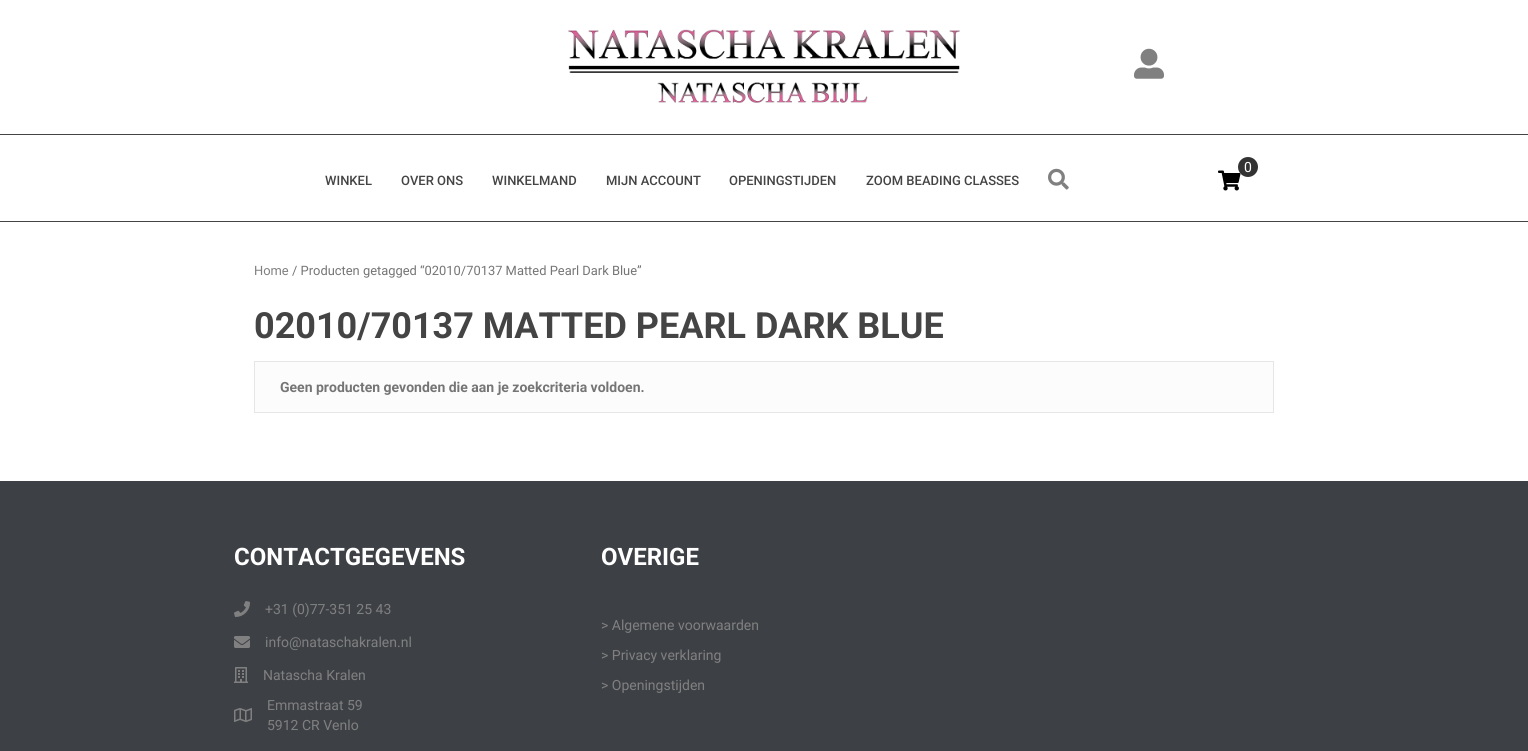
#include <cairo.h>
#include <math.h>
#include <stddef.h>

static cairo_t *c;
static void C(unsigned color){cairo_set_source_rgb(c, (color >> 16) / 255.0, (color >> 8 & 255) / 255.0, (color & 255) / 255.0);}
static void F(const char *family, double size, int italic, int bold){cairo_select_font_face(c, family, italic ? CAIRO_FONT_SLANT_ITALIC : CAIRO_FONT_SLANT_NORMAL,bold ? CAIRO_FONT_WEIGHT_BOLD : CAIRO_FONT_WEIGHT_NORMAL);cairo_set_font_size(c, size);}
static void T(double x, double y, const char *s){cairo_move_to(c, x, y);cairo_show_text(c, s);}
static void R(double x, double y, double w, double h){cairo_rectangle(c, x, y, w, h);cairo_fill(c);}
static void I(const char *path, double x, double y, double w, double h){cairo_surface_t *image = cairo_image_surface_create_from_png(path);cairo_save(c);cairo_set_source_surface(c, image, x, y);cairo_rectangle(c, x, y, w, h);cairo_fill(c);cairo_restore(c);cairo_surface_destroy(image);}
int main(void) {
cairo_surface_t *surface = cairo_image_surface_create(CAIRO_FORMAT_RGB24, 1528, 751);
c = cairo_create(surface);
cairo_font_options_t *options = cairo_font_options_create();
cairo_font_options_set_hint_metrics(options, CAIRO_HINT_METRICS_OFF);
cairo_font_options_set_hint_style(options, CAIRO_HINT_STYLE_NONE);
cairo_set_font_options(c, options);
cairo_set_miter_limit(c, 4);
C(0xffffff);
cairo_paint(c);
I("1.png",568,29,392,74);
I("2.png",1134,48,30,31);
C(0x444444);
R(0,134,1528,1);
R(0,221,1528,1);
I("3.png",1218,170,23,21);
C(0x333333);
cairo_arc(c,1248,167,10,0,2 * M_PI);
cairo_fill(c);
F("Roboto",14,0,0);
C(0xffffff);
T(1244,172,"0");
F("Roboto Medium",13,0,0);
C(0x444444);
T(325,185,"WINKEL");
T(401,185,"OVER ONS");
T(492,185,"WINKELMAND");
T(606,185,"MIJN ACCOUNT");
T(729,185,"OPENINGSTIJDEN");
T(866,185,"ZOOM BEADING CLASSES");
I("4.png",1048,168,21,22);
F("Roboto",12.9,0,0);
C(0x808080);
T(254,275,"Home");
C(0x757575);
T(292,275,"/ Producten getagged “02010/70137 Matted Pearl Dark Blue”");
F("Roboto",36,0,1);
C(0x444444);
T(254,338,"02010/70137 MATTED PEARL DARK BLUE");
C(0xfcfcfc);
cairo_rectangle(c,254.5,361.5,1019,51);
cairo_fill_preserve(c);
C(0xe6e6e6);
cairo_set_line_width(c,1);
cairo_stroke(c);
F("Roboto",14,0,1);
C(0x757575);
T(280,392,"Geen producten gevonden die aan je zoekcriteria voldoen.");
C(0x3d4045);
R(0,481,1528,270);
F("Roboto",24,0,1);
C(0xffffff);
T(234,565,"CONTACTGEGEVENS");
I("5.png",234,601,16,16);
F("Roboto",14,0,0);
C(0x808080);
T(265,614,"+31 (0)77-351 25 43");
I("6.png",234,636,16,12);
T(265,647,"info@nataschakralen.nl");
I("7.png",234,667,14,16);
T(263,680,"Natascha Kralen");
I("8.png",234,708,18,14);
T(267,710,"Emmastraat 59");
T(267,730,"5912 CR Venlo");
F("Roboto",24,0,1);
C(0xffffff);
T(601,565,"OVERIGE");
F("Roboto",14,0,0);
C(0x808080);
T(601,630,"> Algemene voorwaarden");
T(601,660,"> Privacy verklaring");
T(601,690,"> Openingstijden");
cairo_surface_write_to_png(surface, "o.png");
cairo_font_options_destroy(options);
cairo_destroy(c);
cairo_surface_destroy(surface);
return 0;
}
